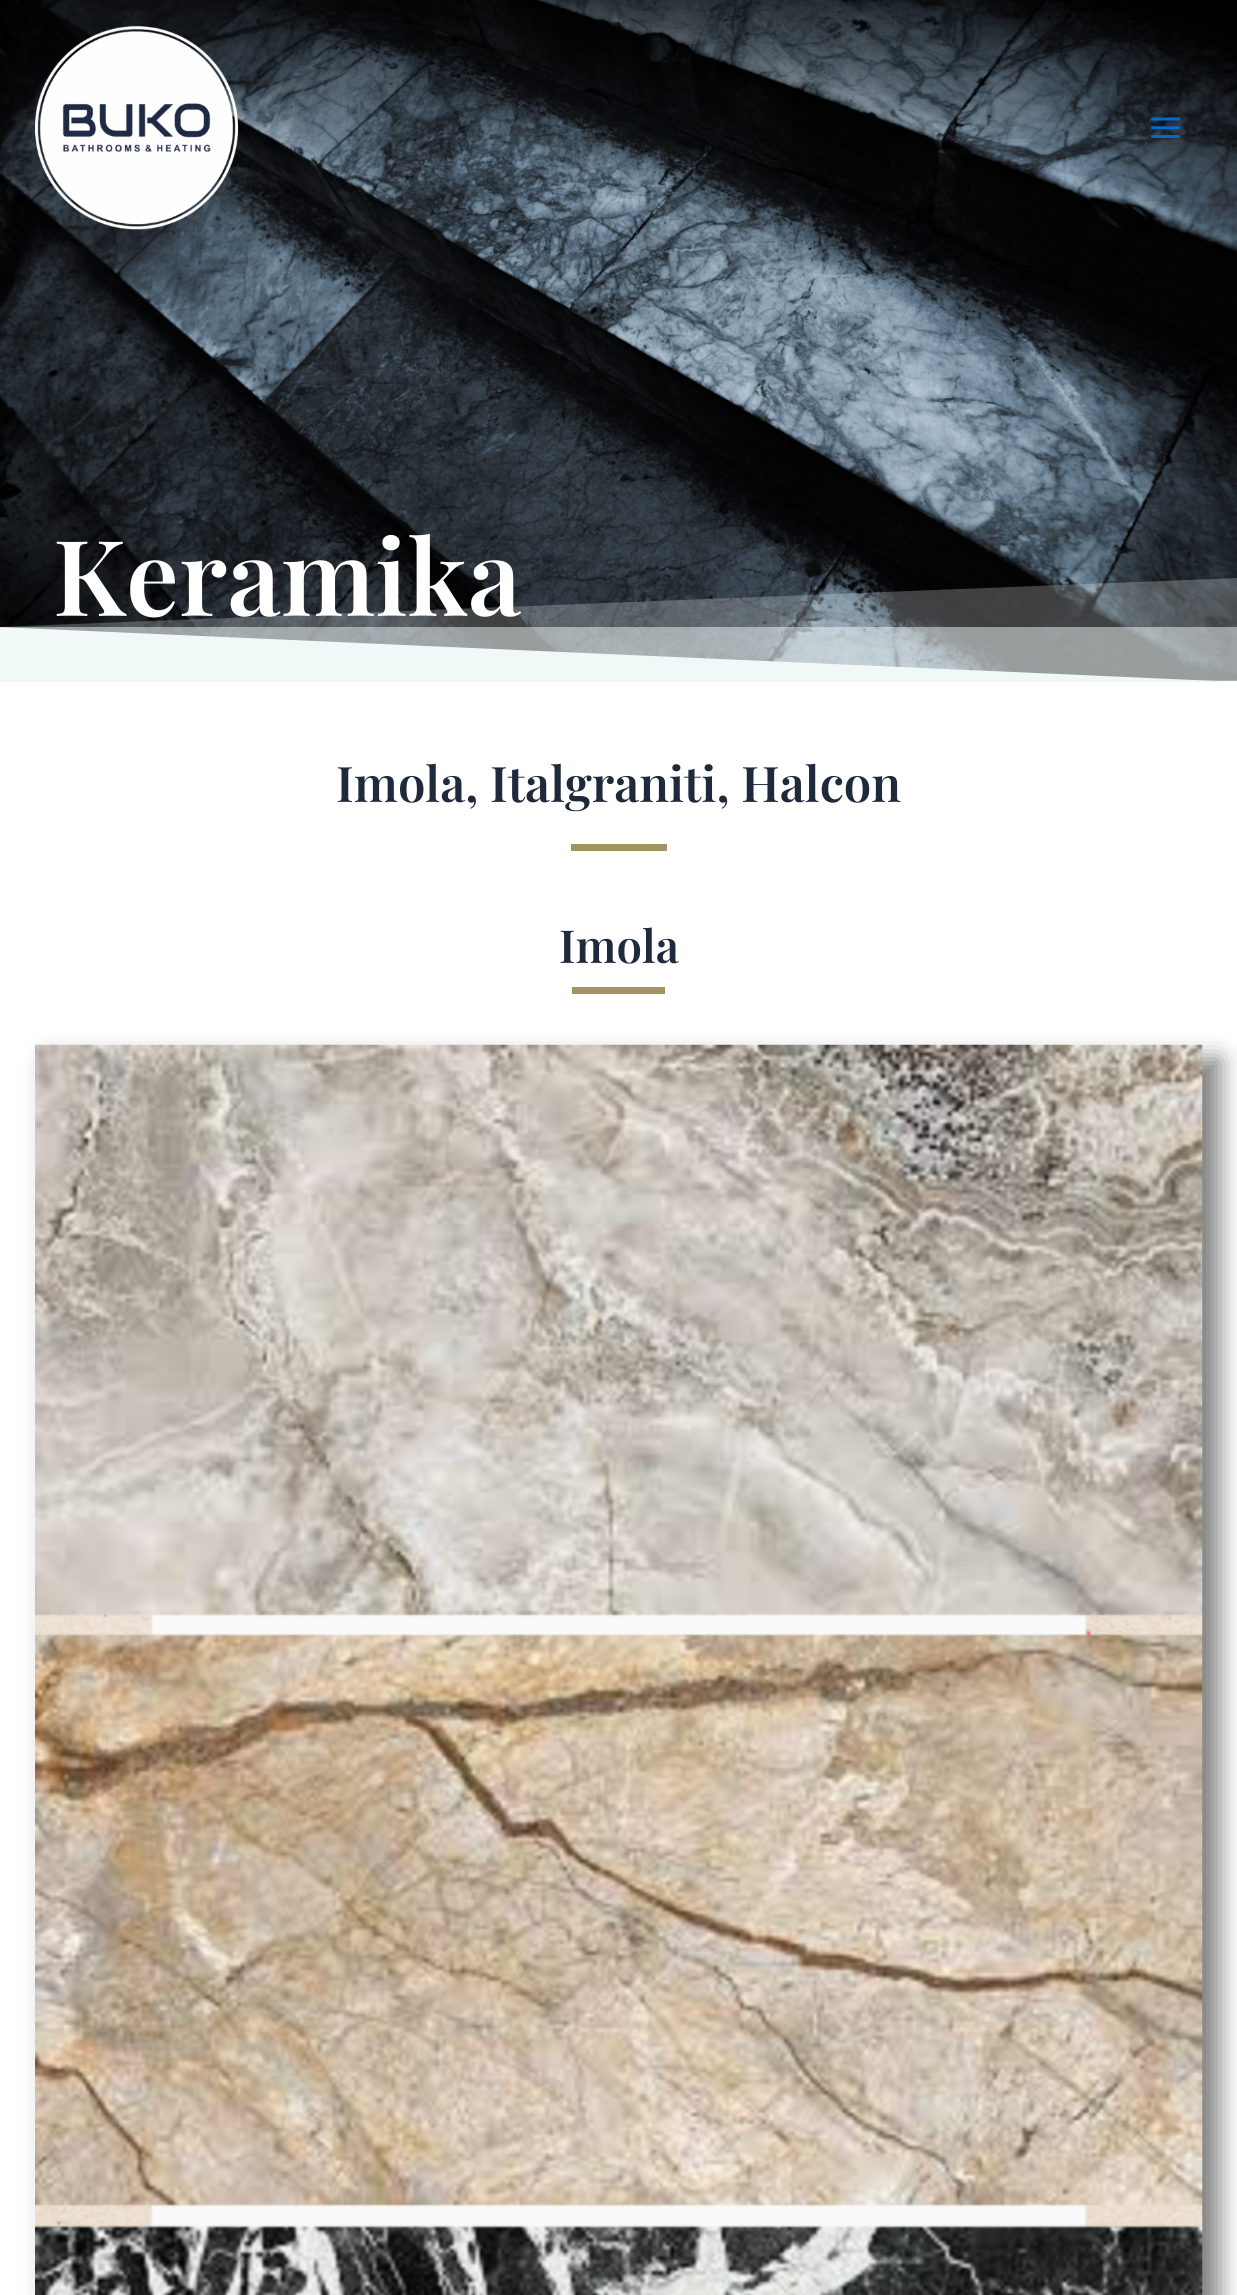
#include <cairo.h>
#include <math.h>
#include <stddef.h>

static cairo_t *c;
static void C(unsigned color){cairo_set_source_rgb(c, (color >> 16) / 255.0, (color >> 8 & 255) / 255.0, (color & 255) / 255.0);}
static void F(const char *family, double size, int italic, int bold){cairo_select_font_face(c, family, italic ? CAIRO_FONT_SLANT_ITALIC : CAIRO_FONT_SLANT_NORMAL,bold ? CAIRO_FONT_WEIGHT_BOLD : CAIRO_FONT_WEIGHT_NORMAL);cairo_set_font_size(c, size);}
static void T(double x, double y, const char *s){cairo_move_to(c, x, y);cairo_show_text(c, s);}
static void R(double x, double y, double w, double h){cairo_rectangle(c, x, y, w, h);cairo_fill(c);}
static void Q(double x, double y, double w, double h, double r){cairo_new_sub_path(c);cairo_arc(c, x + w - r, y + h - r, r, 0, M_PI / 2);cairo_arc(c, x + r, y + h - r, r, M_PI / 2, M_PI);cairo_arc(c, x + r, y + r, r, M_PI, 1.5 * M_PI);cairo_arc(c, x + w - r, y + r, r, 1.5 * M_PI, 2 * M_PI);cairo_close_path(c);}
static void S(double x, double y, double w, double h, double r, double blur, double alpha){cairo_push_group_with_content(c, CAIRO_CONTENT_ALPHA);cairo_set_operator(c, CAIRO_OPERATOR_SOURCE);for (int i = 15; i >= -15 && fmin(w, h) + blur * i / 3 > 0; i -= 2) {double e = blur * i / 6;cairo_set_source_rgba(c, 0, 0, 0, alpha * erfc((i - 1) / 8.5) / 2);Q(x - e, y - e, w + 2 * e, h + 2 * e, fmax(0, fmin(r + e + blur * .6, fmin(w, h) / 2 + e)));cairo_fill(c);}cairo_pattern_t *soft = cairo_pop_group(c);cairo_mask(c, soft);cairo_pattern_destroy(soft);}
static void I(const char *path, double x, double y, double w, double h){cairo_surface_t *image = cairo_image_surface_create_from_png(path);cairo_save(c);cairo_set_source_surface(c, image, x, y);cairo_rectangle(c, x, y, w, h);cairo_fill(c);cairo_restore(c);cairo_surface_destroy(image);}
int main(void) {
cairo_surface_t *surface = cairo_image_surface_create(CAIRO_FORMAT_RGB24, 1237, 2295);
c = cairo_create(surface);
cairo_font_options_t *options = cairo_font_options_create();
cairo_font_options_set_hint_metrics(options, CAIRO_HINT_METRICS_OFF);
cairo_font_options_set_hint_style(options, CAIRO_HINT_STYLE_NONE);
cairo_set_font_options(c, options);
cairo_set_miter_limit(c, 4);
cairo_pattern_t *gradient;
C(0xffffff);
cairo_paint(c);
I("3.png",0,0,1237,681);
gradient = cairo_pattern_create_linear(619,0,619,681);
cairo_pattern_add_color_stop_rgba(gradient,0,0,0,0,.66);
cairo_pattern_add_color_stop_rgba(gradient,.24,0,0,0,0);
cairo_set_source(c,gradient);
cairo_pattern_destroy(gradient);
R(0,0,1237,158);
I("1.png",35,26,203,204);
I("2.png",1150,117,31,21);
C(0xf3f8f8);
cairo_new_path(c);
cairo_move_to(c,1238,682);
cairo_line_to(c,-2,682);
cairo_line_to(c,-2,627);
cairo_close_path(c);
cairo_fill(c);
cairo_set_source_rgba(c,0.953,0.973,0.973,0.5);
R(0,627,1237,55);
cairo_set_source_rgba(c,0.953,0.973,0.973,0.25);
cairo_new_path(c);
cairo_move_to(c,-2,682);
cairo_line_to(c,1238,682);
cairo_line_to(c,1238,578);
cairo_line_to(c,-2,627);
cairo_close_path(c);
cairo_fill(c);
F("Playfair Display SemiBold",105,0,0);
C(0xffffff);
T(53,616,"Keramika");
F("Playfair Display SemiBold",49,0,0);
C(0x1e293b);
T(336,802,"Imola, Italgraniti, Halcon");
C(0xa2945f);
R(571,844,96,7);
F("Playfair Display SemiBold",45.5,0,0);
C(0x1e293b);
T(559,963,"Imola");
C(0xa2945f);
R(572,987,93,7);
C(0x000000);
S(49,1059,1171,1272,0,12,.5);
I("4.png",35,1044,1168,1251);
cairo_surface_write_to_png(surface, "o.png");
cairo_font_options_destroy(options);
cairo_destroy(c);
cairo_surface_destroy(surface);
return 0;
}
